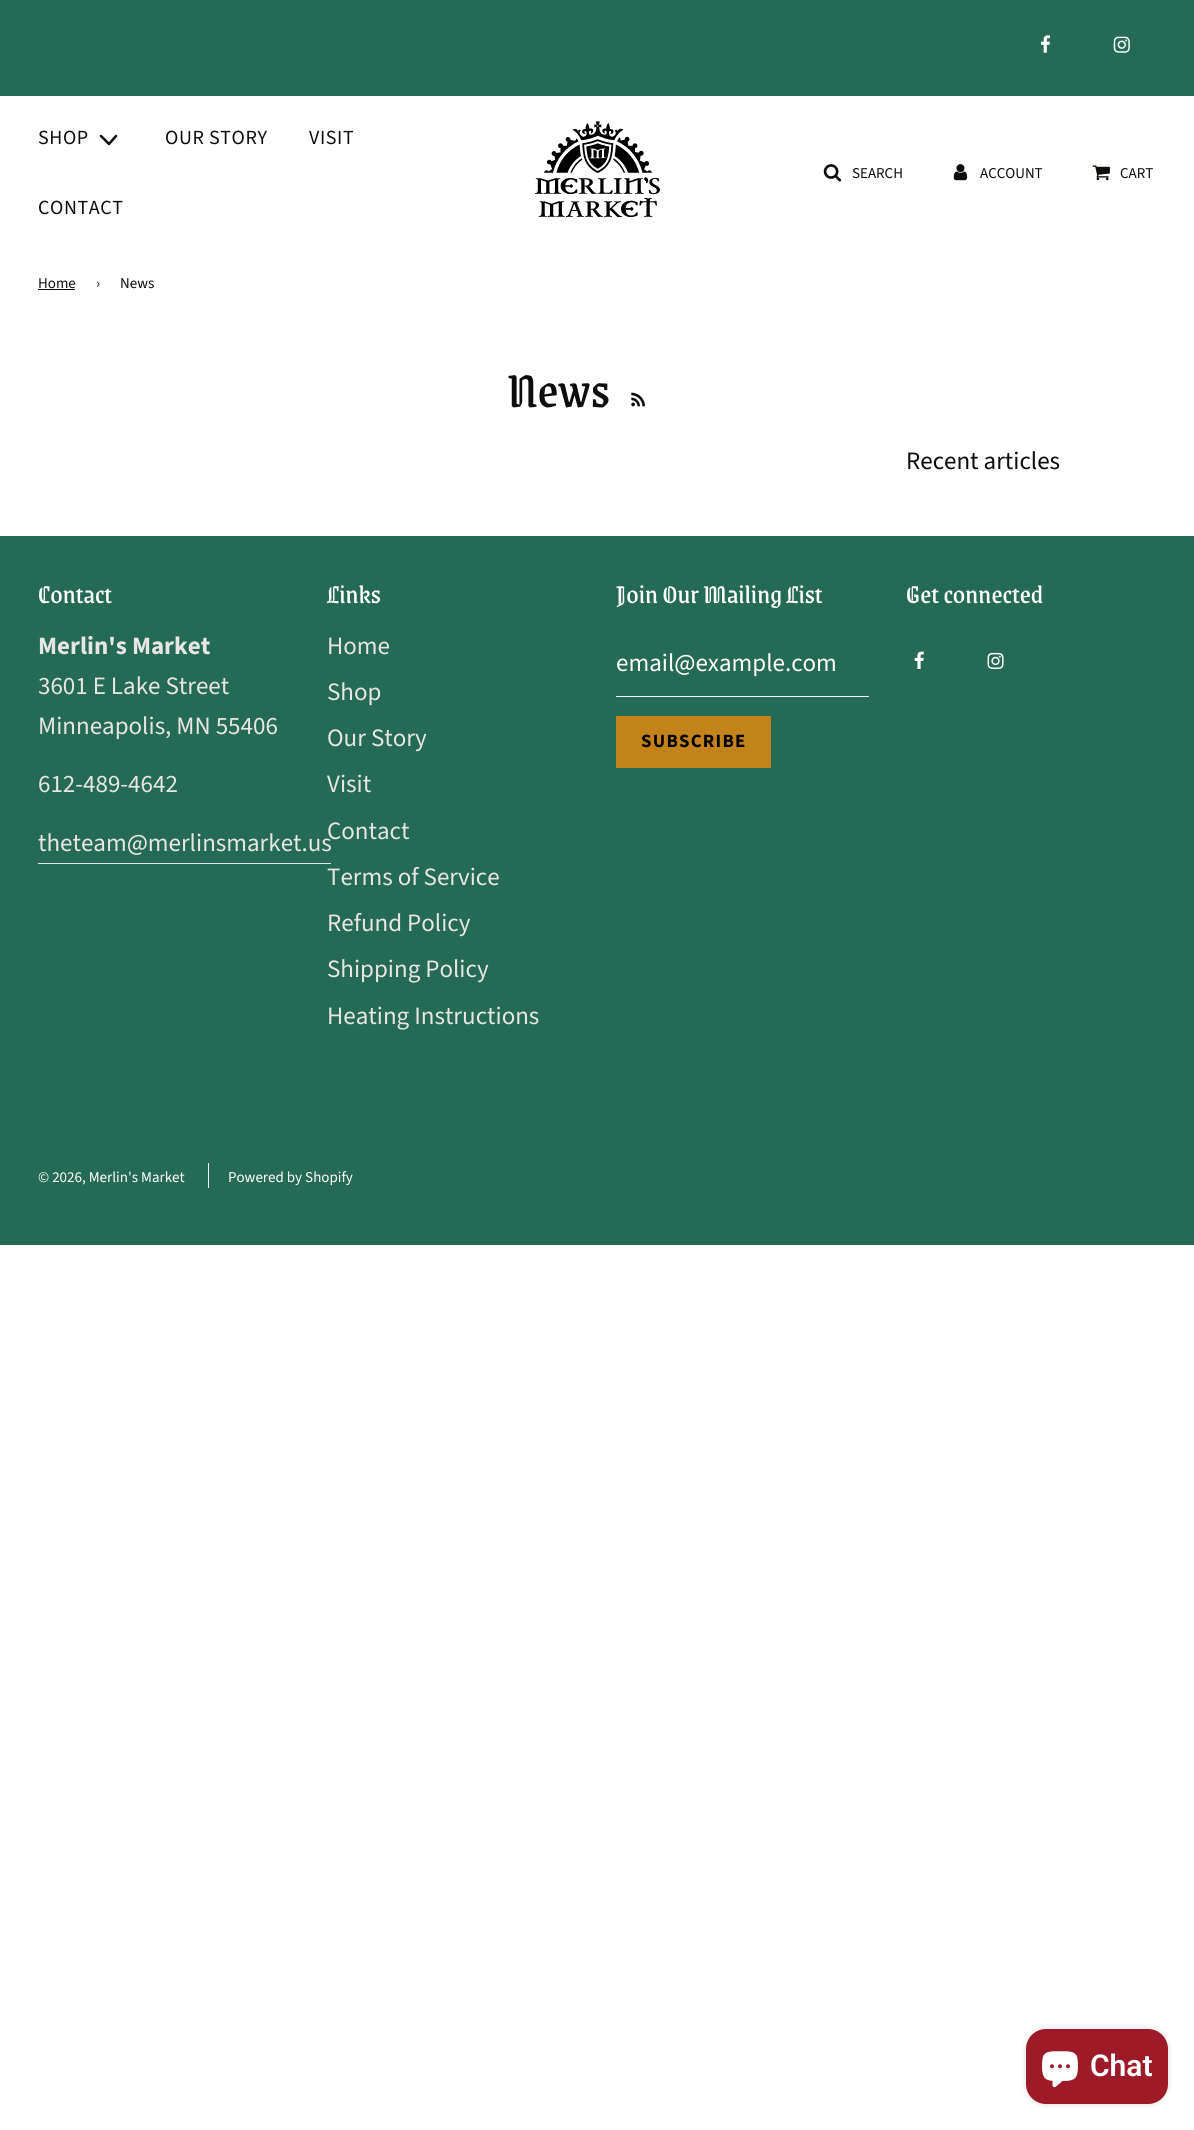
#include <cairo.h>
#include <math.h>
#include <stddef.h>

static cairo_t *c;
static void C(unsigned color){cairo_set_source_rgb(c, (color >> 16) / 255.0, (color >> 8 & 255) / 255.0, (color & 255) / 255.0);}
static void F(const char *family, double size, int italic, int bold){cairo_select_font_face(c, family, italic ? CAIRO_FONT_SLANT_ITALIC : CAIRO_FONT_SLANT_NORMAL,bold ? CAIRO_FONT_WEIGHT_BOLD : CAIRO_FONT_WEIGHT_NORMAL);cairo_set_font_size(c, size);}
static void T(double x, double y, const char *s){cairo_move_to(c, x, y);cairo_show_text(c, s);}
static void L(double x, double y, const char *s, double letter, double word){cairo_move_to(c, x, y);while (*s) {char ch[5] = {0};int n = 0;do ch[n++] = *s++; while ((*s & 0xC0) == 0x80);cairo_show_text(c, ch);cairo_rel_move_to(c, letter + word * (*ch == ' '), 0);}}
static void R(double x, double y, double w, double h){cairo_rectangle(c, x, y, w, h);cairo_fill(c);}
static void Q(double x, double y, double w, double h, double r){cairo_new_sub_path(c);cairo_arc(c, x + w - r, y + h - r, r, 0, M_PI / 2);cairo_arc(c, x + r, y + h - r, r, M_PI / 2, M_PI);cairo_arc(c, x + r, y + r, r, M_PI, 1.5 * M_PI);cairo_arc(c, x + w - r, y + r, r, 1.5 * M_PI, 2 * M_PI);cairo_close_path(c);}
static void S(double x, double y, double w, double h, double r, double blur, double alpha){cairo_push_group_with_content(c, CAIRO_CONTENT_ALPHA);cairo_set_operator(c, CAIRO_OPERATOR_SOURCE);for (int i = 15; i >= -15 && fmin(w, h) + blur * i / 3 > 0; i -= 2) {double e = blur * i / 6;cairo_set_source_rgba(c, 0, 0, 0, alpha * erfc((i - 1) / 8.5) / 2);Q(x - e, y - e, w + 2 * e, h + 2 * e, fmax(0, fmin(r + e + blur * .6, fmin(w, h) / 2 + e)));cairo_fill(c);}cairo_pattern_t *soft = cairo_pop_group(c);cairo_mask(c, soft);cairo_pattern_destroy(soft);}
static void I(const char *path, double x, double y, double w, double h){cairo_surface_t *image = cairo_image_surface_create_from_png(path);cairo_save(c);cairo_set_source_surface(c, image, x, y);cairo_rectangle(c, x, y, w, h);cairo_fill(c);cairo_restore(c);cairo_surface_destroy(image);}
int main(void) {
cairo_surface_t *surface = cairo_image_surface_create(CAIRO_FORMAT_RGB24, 1194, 2130);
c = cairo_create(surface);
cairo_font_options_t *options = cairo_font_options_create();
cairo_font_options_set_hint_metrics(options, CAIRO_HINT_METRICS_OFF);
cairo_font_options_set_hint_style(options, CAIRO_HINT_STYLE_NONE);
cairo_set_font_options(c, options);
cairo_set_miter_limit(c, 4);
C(0xffffff);
cairo_paint(c);
C(0x256a55);
R(0,0,1194,96);
I("1.png",1041,35,10,18);
I("2.png",1113,36,17,17);
F("Source Sans Pro",20,0,0);
C(0x0e0d0b);
L(38,144,"SHOP",.6,0);
cairo_new_path(c);
cairo_move_to(c,101,136);
cairo_line_to(c,109,144);
cairo_line_to(c,116,136);
cairo_set_line_width(c,2.5);
cairo_set_line_cap(c,CAIRO_LINE_CAP_ROUND);
cairo_set_line_join(c,CAIRO_LINE_JOIN_ROUND);
cairo_stroke(c);
L(165,144,"OUR STORY",.6,0);
L(309,144,"VISIT",.6,0);
L(38,214,"CONTACT",.6,0);
I("3.png",535,121,125,96);
I("4.png",823,164,19,18);
F("Source Sans Pro",15,0,0);
T(852,178,"SEARCH");
I("5.png",953,164,15,17);
T(980,178,"ACCOUNT");
I("6.png",1092,165,18,16);
T(1120,178,"CART");
T(38,288,"Home");
R(38,289,37,1);
T(96,288,"›");
T(120,288,"News");
F("Grenze Gotisch",52,0,0);
T(507,407,"News");
I("7.png",631,392,14,15);
F("Source Sans Pro",25,0,0);
T(906,469,"Recent articles");
C(0x256a55);
R(0,536,1194,709);
F("Grenze Gotisch",27.5,0,0);
C(0xffffff);
T(38,603,"Contact");
F("Source Sans Pro",25,0,1);
C(0xe6e6e6);
T(38,654,"Merlin's Market");
F("Source Sans Pro",25,0,0);
T(38,694,"3601 E Lake Street");
T(38,734,"Minneapolis, MN 55406");
T(38,792,"612-489-4642");
T(38,851,"theteam@merlinsmarket.us");
R(38,863,293,1);
F("Grenze Gotisch",27.5,0,0);
C(0xffffff);
T(327,603,"Links");
F("Source Sans Pro",25,0,0);
C(0xe6e6e6);
T(327,654,"Home");
T(327,700,"Shop");
T(327,746,"Our Story");
T(327,792,"Visit");
T(327,839,"Contact");
T(327,885,"Terms of Service");
T(327,931,"Refund Policy");
T(327,977,"Shipping Policy");
T(327,1024,"Heating Instructions");
F("Grenze Gotisch",27.5,0,0);
C(0xffffff);
T(616,603,"Join Our Mailing List");
R(616,696,253,1);
F("Source Sans Pro",25,0,0);
T(616,671,"email@example.com");
C(0xc3821a);
R(616,716,155,52);
F("Source Sans Pro",18.75,0,1);
C(0x000000);
L(641,747,"SUBSCRIBE",1.25,0);
F("Grenze Gotisch",27.5,0,0);
C(0xffffff);
T(906,603,"Get connected");
I("8.png",914,651,10,18);
I("9.png",987,652,17,17);
F("Source Sans Pro",15,0,0);
T(38,1182,"© 2026, Merlin's Market");
R(208,1163,1,25);
T(228,1182,"Powered by Shopify");
C(0x000000);
S(1026,2029,142,75,20,3,.15);
C(0x9d1b28);
Q(1026,2029,142,75,20);
cairo_fill(c);
I("10.png",1042,2051,36,37);
F("Roboto SemiBold",30,0,0);
C(0xffffff);
T(1090,2076,"Chat");
cairo_surface_write_to_png(surface, "o.png");
cairo_font_options_destroy(options);
cairo_destroy(c);
cairo_surface_destroy(surface);
return 0;
}
